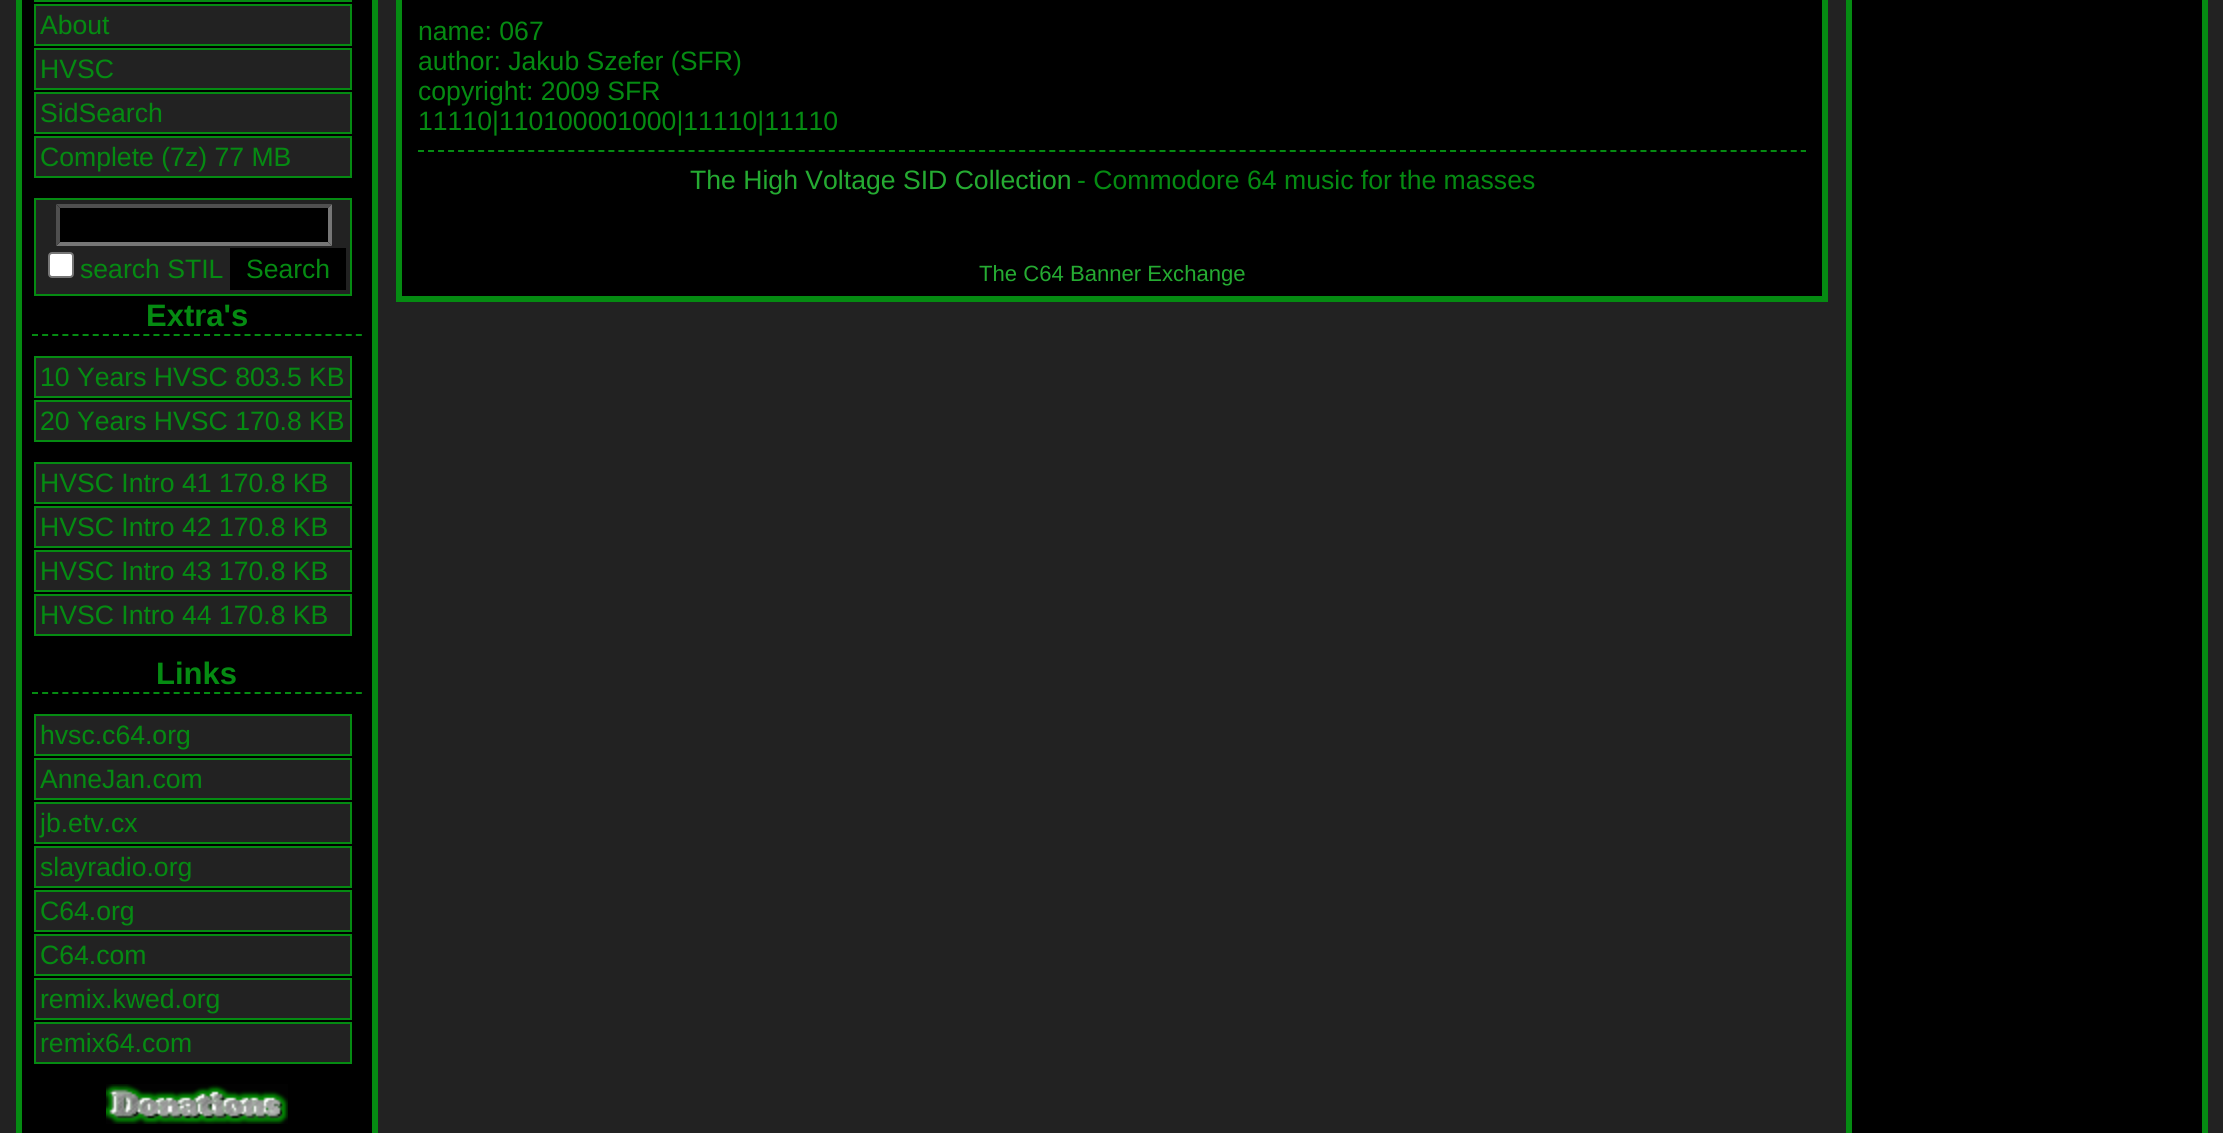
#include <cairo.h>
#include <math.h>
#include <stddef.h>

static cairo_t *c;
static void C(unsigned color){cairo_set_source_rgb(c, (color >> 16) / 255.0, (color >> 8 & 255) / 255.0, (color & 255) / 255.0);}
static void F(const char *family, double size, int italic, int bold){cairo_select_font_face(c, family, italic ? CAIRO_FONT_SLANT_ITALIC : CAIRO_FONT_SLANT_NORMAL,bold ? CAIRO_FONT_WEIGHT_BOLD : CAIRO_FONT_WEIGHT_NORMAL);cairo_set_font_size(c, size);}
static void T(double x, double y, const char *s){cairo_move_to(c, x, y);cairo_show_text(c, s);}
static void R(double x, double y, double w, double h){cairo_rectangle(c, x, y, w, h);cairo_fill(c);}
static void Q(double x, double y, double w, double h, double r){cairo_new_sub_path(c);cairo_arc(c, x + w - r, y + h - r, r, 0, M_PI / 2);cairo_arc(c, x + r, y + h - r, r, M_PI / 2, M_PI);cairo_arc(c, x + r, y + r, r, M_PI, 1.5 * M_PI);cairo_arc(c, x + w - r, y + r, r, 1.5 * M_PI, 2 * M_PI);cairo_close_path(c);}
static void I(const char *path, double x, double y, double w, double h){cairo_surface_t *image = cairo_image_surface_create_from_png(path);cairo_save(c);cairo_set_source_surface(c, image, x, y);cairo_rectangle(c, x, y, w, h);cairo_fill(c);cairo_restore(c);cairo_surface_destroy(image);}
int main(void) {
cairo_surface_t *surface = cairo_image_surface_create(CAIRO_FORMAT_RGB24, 2223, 1133);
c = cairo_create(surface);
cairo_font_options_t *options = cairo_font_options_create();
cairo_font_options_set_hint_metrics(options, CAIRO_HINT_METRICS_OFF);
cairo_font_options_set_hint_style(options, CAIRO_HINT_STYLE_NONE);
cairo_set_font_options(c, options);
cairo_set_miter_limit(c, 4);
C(0x222222);
cairo_paint(c);
C(0x000000);
cairo_rectangle(c,19,-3,356,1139);
cairo_fill_preserve(c);
C(0x058b12);
cairo_set_line_width(c,6);
cairo_stroke(c);
cairo_rectangle(c,35,-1,316,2);
cairo_set_line_width(c,2);
cairo_stroke(c);
C(0x222222);
cairo_rectangle(c,35,5,316,40);
cairo_fill_preserve(c);
C(0x058b12);
cairo_stroke(c);
F("Liberation Sans",26.6,0,0);
T(40,34,"About");
C(0x222222);
cairo_rectangle(c,35,49,316,40);
cairo_fill_preserve(c);
C(0x058b12);
cairo_stroke(c);
T(40,78,"HVSC");
C(0x222222);
cairo_rectangle(c,35,93,316,40);
cairo_fill_preserve(c);
C(0x058b12);
cairo_stroke(c);
T(40,122,"SidSearch");
C(0x222222);
cairo_rectangle(c,35,137,316,40);
cairo_fill_preserve(c);
C(0x058b12);
cairo_stroke(c);
T(40,166,"Complete (7z) 77 MB");
C(0x222222);
cairo_rectangle(c,35,199,316,96);
cairo_fill_preserve(c);
C(0x058b12);
cairo_stroke(c);
C(0x000000);
R(56,204,276,42);
C(0x4f4f4f);
cairo_new_path(c);
cairo_move_to(c,56,204);
cairo_line_to(c,332,204);
cairo_line_to(c,328,208);
cairo_line_to(c,60,208);
cairo_close_path(c);
cairo_fill(c);
C(0x767676);
cairo_new_path(c);
cairo_move_to(c,332,204);
cairo_line_to(c,332,246);
cairo_line_to(c,328,242);
cairo_line_to(c,328,208);
cairo_close_path(c);
cairo_fill(c);
cairo_new_path(c);
cairo_move_to(c,332,246);
cairo_line_to(c,56,246);
cairo_line_to(c,60,242);
cairo_line_to(c,328,242);
cairo_close_path(c);
cairo_fill(c);
C(0x4f4f4f);
cairo_new_path(c);
cairo_move_to(c,56,246);
cairo_line_to(c,56,204);
cairo_line_to(c,60,208);
cairo_line_to(c,60,242);
cairo_close_path(c);
cairo_fill(c);
C(0xffffff);
Q(49,253,24,24,3);
cairo_fill_preserve(c);
C(0x767676);
cairo_stroke(c);
C(0x058b12);
T(80,278,"search STIL");
C(0x000000);
R(230,248,116,42);
F("Liberation Sans",26.5,0,0);
C(0x058b12);
T(246,278,"Search");
cairo_new_path(c);
cairo_move_to(c,32,335);
cairo_line_to(c,362,335);
cairo_set_dash(c,(double[]){6,4.12},2,0);
cairo_stroke(c);
F("Liberation Sans",31,0,1);
T(146,326,"Extra's");
C(0x222222);
cairo_rectangle(c,35,357,316,40);
cairo_fill_preserve(c);
C(0x058b12);
cairo_set_dash(c,NULL,0,0);
cairo_stroke(c);
F("Liberation Sans",26.6,0,0);
T(40,386,"10 Years HVSC 803.5 KB");
C(0x222222);
cairo_rectangle(c,35,401,316,40);
cairo_fill_preserve(c);
C(0x058b12);
cairo_stroke(c);
T(40,430,"20 Years HVSC 170.8 KB");
C(0x222222);
cairo_rectangle(c,35,463,316,40);
cairo_fill_preserve(c);
C(0x058b12);
cairo_stroke(c);
T(40,492,"HVSC Intro 41 170.8 KB");
C(0x222222);
cairo_rectangle(c,35,507,316,40);
cairo_fill_preserve(c);
C(0x058b12);
cairo_stroke(c);
T(40,536,"HVSC Intro 42 170.8 KB");
C(0x222222);
cairo_rectangle(c,35,551,316,40);
cairo_fill_preserve(c);
C(0x058b12);
cairo_stroke(c);
T(40,580,"HVSC Intro 43 170.8 KB");
C(0x222222);
cairo_rectangle(c,35,595,316,40);
cairo_fill_preserve(c);
C(0x058b12);
cairo_stroke(c);
T(40,624,"HVSC Intro 44 170.8 KB");
cairo_new_path(c);
cairo_move_to(c,32,693);
cairo_line_to(c,362,693);
cairo_set_dash(c,(double[]){6,4.12},2,0);
cairo_stroke(c);
F("Liberation Sans",31,0,1);
T(156,684,"Links");
C(0x222222);
cairo_rectangle(c,35,715,316,40);
cairo_fill_preserve(c);
C(0x058b12);
cairo_set_dash(c,NULL,0,0);
cairo_stroke(c);
F("Liberation Sans",26.6,0,0);
T(40,744,"hvsc.c64.org");
C(0x222222);
cairo_rectangle(c,35,759,316,40);
cairo_fill_preserve(c);
C(0x058b12);
cairo_stroke(c);
T(40,788,"AnneJan.com");
C(0x222222);
cairo_rectangle(c,35,803,316,40);
cairo_fill_preserve(c);
C(0x058b12);
cairo_stroke(c);
T(40,832,"jb.etv.cx");
C(0x222222);
cairo_rectangle(c,35,847,316,40);
cairo_fill_preserve(c);
C(0x058b12);
cairo_stroke(c);
T(40,876,"slayradio.org");
C(0x222222);
cairo_rectangle(c,35,891,316,40);
cairo_fill_preserve(c);
C(0x058b12);
cairo_stroke(c);
T(40,920,"C64.org");
C(0x222222);
cairo_rectangle(c,35,935,316,40);
cairo_fill_preserve(c);
C(0x058b12);
cairo_stroke(c);
T(40,964,"C64.com");
C(0x222222);
cairo_rectangle(c,35,979,316,40);
cairo_fill_preserve(c);
C(0x058b12);
cairo_stroke(c);
T(40,1008,"remix.kwed.org");
C(0x222222);
cairo_rectangle(c,35,1023,316,40);
cairo_fill_preserve(c);
C(0x058b12);
cairo_stroke(c);
T(40,1052,"remix64.com");
I("1.png",106,1084,182,40);
C(0x000000);
cairo_rectangle(c,399,-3,1426,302);
cairo_fill_preserve(c);
C(0x058b12);
cairo_set_line_width(c,6);
cairo_stroke(c);
T(418,40,"name: 067");
T(418,70,"author: Jakub Szefer (SFR)");
T(418,100,"copyright: 2009 SFR");
T(418,130,"11110|110100001000|11110|11110");
cairo_new_path(c);
cairo_move_to(c,418,151);
cairo_line_to(c,1806,151);
cairo_set_line_width(c,2);
cairo_set_dash(c,(double[]){6,4.02},2,0);
cairo_stroke(c);
C(0x25ab32);
T(690,189,"The High Voltage SID Collection");
C(0x058b12);
T(1077,189,"- Commodore 64 music for the masses");
F("Liberation Sans",22.1,0,0);
C(0x25ab32);
T(979,281,"The C64 Banner Exchange");
C(0x000000);
cairo_rectangle(c,1849,-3,356,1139);
cairo_fill_preserve(c);
C(0x058b12);
cairo_set_line_width(c,6);
cairo_set_dash(c,NULL,0,0);
cairo_stroke(c);
cairo_surface_write_to_png(surface, "o.png");
cairo_font_options_destroy(options);
cairo_destroy(c);
cairo_surface_destroy(surface);
return 0;
}
